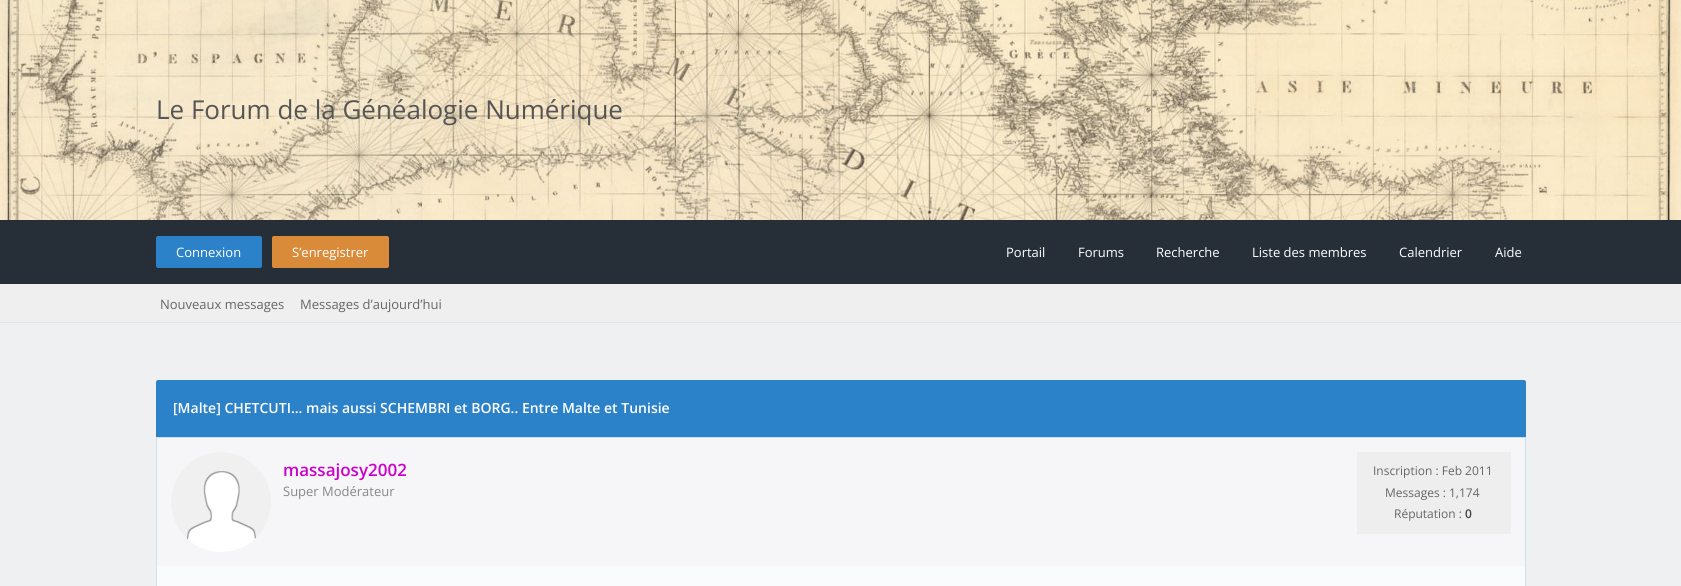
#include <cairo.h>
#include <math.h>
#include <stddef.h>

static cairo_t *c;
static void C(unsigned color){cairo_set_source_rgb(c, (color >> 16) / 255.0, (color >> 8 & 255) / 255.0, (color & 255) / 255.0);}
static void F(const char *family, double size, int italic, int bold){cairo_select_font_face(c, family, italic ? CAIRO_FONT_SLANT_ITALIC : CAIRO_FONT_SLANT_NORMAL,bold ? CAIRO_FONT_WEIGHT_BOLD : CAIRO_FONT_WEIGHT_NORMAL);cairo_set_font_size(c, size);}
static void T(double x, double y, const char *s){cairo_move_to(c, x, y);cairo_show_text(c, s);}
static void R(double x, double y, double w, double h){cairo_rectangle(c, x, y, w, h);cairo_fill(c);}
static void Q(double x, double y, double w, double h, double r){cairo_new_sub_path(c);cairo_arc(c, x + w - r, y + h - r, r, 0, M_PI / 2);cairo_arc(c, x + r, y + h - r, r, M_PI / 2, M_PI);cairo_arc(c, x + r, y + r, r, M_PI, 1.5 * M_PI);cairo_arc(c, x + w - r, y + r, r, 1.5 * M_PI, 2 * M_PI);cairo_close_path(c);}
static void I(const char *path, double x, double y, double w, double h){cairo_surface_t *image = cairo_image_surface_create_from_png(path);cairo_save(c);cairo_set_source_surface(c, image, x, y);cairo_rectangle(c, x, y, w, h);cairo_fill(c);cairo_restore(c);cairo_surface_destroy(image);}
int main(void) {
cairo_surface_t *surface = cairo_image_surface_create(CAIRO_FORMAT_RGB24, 1681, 586);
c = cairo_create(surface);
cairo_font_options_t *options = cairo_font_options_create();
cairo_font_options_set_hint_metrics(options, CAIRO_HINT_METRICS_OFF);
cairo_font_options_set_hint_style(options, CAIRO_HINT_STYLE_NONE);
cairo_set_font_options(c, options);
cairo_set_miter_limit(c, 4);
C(0xffffff);
cairo_paint(c);
I("1.png",0,0,1681,220);
F("Open Sans",26,0,0);
C(0x555555);
T(156,119,"Le Forum de la Généalogie Numérique");
C(0x262e38);
R(0,220,1681,64);
C(0x2c82c9);
Q(156,236,106,32,2);
cairo_fill(c);
F("Open Sans",13,0,0);
C(0xffffff);
T(176,257,"Connexion");
C(0xd98b3a);
Q(272,236,117,32,2);
cairo_fill(c);
C(0xffffff);
T(292,257,"S’enregistrer");
T(1006,257,"Portail");
T(1078,257,"Forums");
T(1156,257,"Recherche");
T(1252,257,"Liste des membres");
T(1399,257,"Calendrier");
T(1495,257,"Aide");
C(0xefefef);
R(0,284,1681,38);
C(0xe3e3e3);
R(0,322,1681,1);
C(0x666666);
T(160,309,"Nouveaux messages");
T(300,309,"Messages d’aujourd’hui");
C(0xeef0f2);
R(0,323,1681,263);
C(0x2c82c9);
cairo_new_path(c);
cairo_move_to(c,158,380);
cairo_line_to(c,1524,380);
cairo_curve_to(c,1525,380,1526,381,1526,382);
cairo_line_to(c,1526,437);
cairo_line_to(c,156,437);
cairo_line_to(c,156,382);
cairo_curve_to(c,156,381,157,380,158,380);
cairo_close_path(c);
cairo_fill(c);
F("Open Sans SemiBold",14,0,0);
C(0xffffff);
T(173,413,"[Malte] CHETCUTI... mais aussi SCHEMBRI et BORG.. Entre Malte et Tunisie");
C(0xfafbfc);
R(157,566,1368,20);
cairo_rectangle(c,156.5,437.5,1369,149);
C(0xcde0f1);
cairo_set_line_width(c,1);
cairo_stroke(c);
C(0xf6f5f7);
R(157,438,1368,128);
C(0xffffff);
cairo_arc(c,221,502,50,0,2 * M_PI);
cairo_fill(c);
I("2.png",171,452,100,88);
F("Open Sans SemiBold",17,0,0);
C(0xcc00cc);
T(283,476,"massajosy2002");
F("Open Sans",13,0,0);
C(0x888888);
T(283,496,"Super Modérateur");
C(0xeeeeee);
R(1357,452,154,82);
F("Open Sans",12,0,0);
C(0x666666);
T(1373,475,"Inscription : Feb 2011");
T(1385,497,"Messages : 1,174");
T(1394,518,"Réputation :");
F("Open Sans SemiBold",12,0,0);
C(0x444444);
T(1465,518,"0");
cairo_surface_write_to_png(surface, "o.png");
cairo_font_options_destroy(options);
cairo_destroy(c);
cairo_surface_destroy(surface);
return 0;
}
